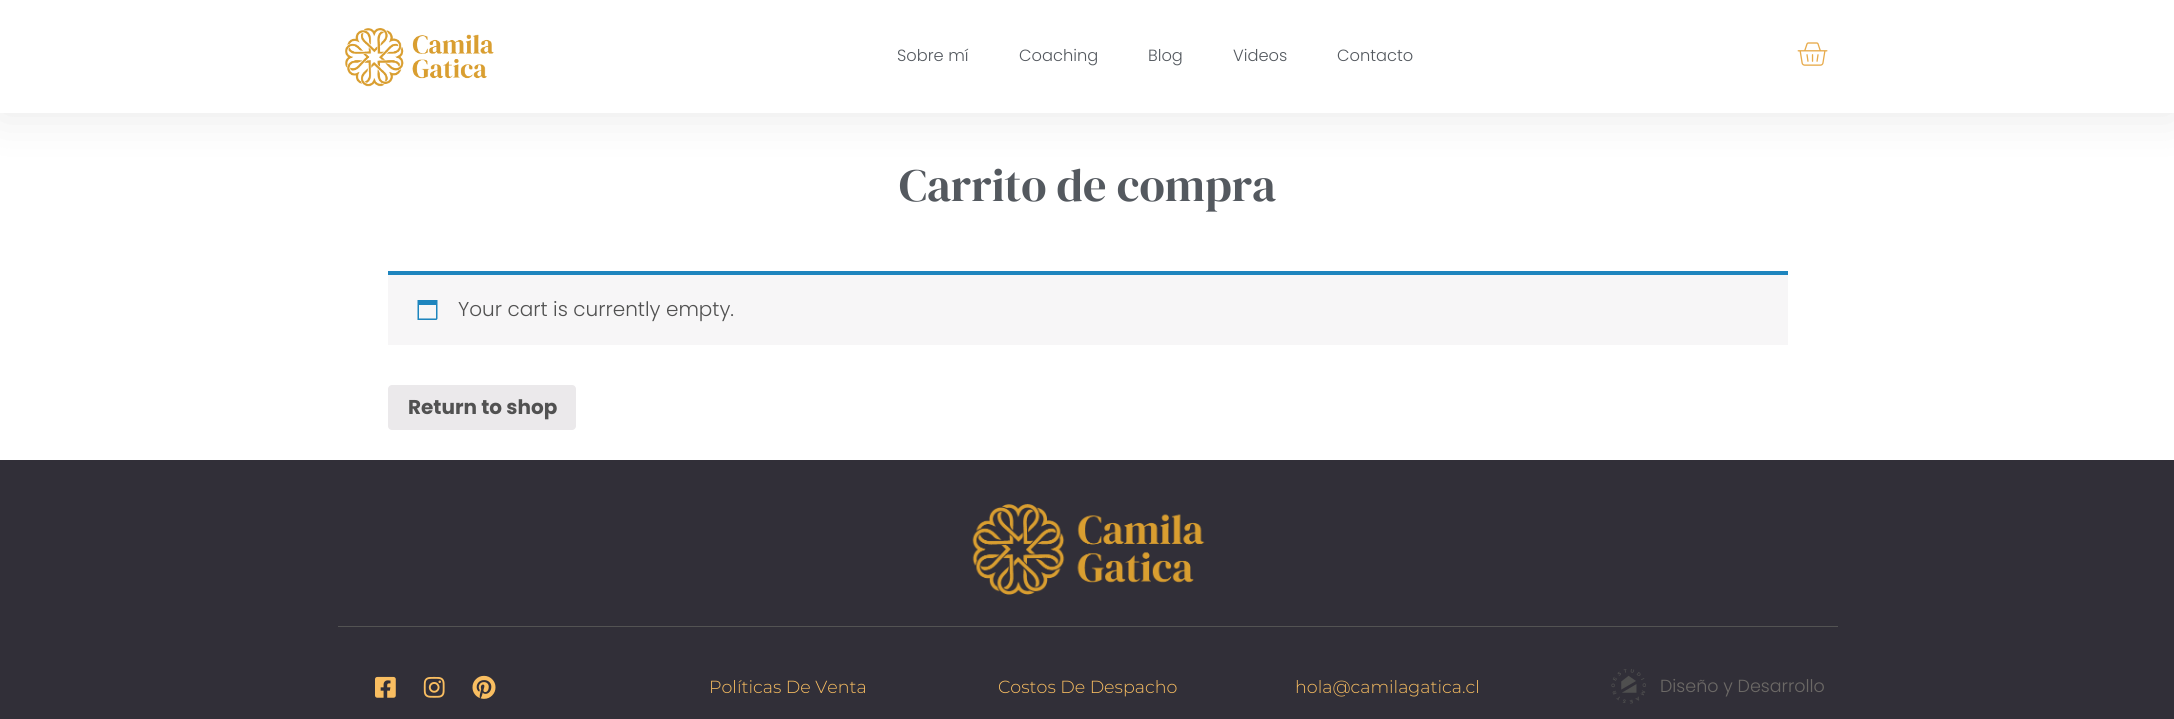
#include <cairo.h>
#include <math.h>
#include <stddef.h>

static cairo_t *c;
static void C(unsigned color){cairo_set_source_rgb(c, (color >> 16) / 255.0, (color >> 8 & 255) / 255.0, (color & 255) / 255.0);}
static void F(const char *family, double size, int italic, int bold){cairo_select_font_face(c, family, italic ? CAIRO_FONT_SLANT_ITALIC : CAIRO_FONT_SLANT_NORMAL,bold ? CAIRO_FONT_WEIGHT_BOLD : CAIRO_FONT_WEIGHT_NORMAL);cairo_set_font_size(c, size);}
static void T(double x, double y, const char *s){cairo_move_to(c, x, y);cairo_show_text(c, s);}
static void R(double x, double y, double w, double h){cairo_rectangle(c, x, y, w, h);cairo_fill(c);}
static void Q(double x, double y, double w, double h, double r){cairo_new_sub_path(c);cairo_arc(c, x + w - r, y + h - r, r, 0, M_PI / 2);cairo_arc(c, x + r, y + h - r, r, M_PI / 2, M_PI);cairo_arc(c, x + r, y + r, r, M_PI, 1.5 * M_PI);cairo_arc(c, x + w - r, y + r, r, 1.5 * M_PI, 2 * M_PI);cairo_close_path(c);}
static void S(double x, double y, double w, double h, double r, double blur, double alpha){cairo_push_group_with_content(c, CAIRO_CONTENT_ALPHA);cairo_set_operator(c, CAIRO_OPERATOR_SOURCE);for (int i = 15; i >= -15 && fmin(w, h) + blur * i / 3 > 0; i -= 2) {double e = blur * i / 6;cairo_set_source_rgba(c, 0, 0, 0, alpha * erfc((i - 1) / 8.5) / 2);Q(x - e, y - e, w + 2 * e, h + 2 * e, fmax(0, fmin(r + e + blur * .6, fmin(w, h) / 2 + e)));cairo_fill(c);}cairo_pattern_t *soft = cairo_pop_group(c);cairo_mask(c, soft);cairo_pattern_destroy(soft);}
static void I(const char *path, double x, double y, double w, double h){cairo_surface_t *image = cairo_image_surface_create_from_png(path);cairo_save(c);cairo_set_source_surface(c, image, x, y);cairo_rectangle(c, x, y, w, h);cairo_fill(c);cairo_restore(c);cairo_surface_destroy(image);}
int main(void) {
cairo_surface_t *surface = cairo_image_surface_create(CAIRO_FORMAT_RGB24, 2174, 719);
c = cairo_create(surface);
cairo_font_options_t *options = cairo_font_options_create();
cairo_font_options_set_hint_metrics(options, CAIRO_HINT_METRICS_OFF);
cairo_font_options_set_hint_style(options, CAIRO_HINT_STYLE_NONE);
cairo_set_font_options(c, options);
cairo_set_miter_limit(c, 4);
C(0xffffff);
cairo_paint(c);
C(0x000000);
S(0,0,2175,113,0,24,.1);
C(0xffffff);
R(0,0,2174,113);
I("1.png",345,28,149,59);
F("Poppins Light",16.25,0,0);
C(0x54595f);
T(897,61,"Sobre mí");
T(1019,61,"Coaching");
T(1148,61,"Blog");
T(1233,61,"Videos");
T(1337,61,"Contacto");
I("2.png",1797,42,31,24);
F("DM Serif Display",46.25,0,0);
T(899,201,"Carrito de compra");
C(0xf7f6f7);
R(388,275,1400,70);
C(0x1e85be);
R(388,271,1400,4);
I("3.png",417,300,21,20);
F("Poppins Light",20,0,0);
C(0x515151);
T(458,316,"Your cart is currently empty.");
C(0xebe9eb);
Q(388,385,188,45,4);
cairo_fill(c);
F("Poppins",20,0,1);
C(0x515151);
T(408,414,"Return to shop");
C(0x312f38);
R(0,460,2174,259);
I("4.png",972,504,233,91);
C(0x535353);
R(338,626,1500,1);
I("5.png",375,676,21,22);
I("6.png",423,676,22,22);
I("7.png",472,675,24,24);
F("Montserrat Light",17.5,0,0);
C(0xf9be61);
T(709,693,"Políticas De Venta");
T(998,693,"Costos De Despacho");
T(1295,693,"hola@camilagatica.cl");
I("8.png",1611,669,35,35);
F("Poppins Light",17.5,0,0);
C(0x6c6966);
T(1660,692,"Diseño y Desarrollo");
cairo_surface_write_to_png(surface, "o.png");
cairo_font_options_destroy(options);
cairo_destroy(c);
cairo_surface_destroy(surface);
return 0;
}
